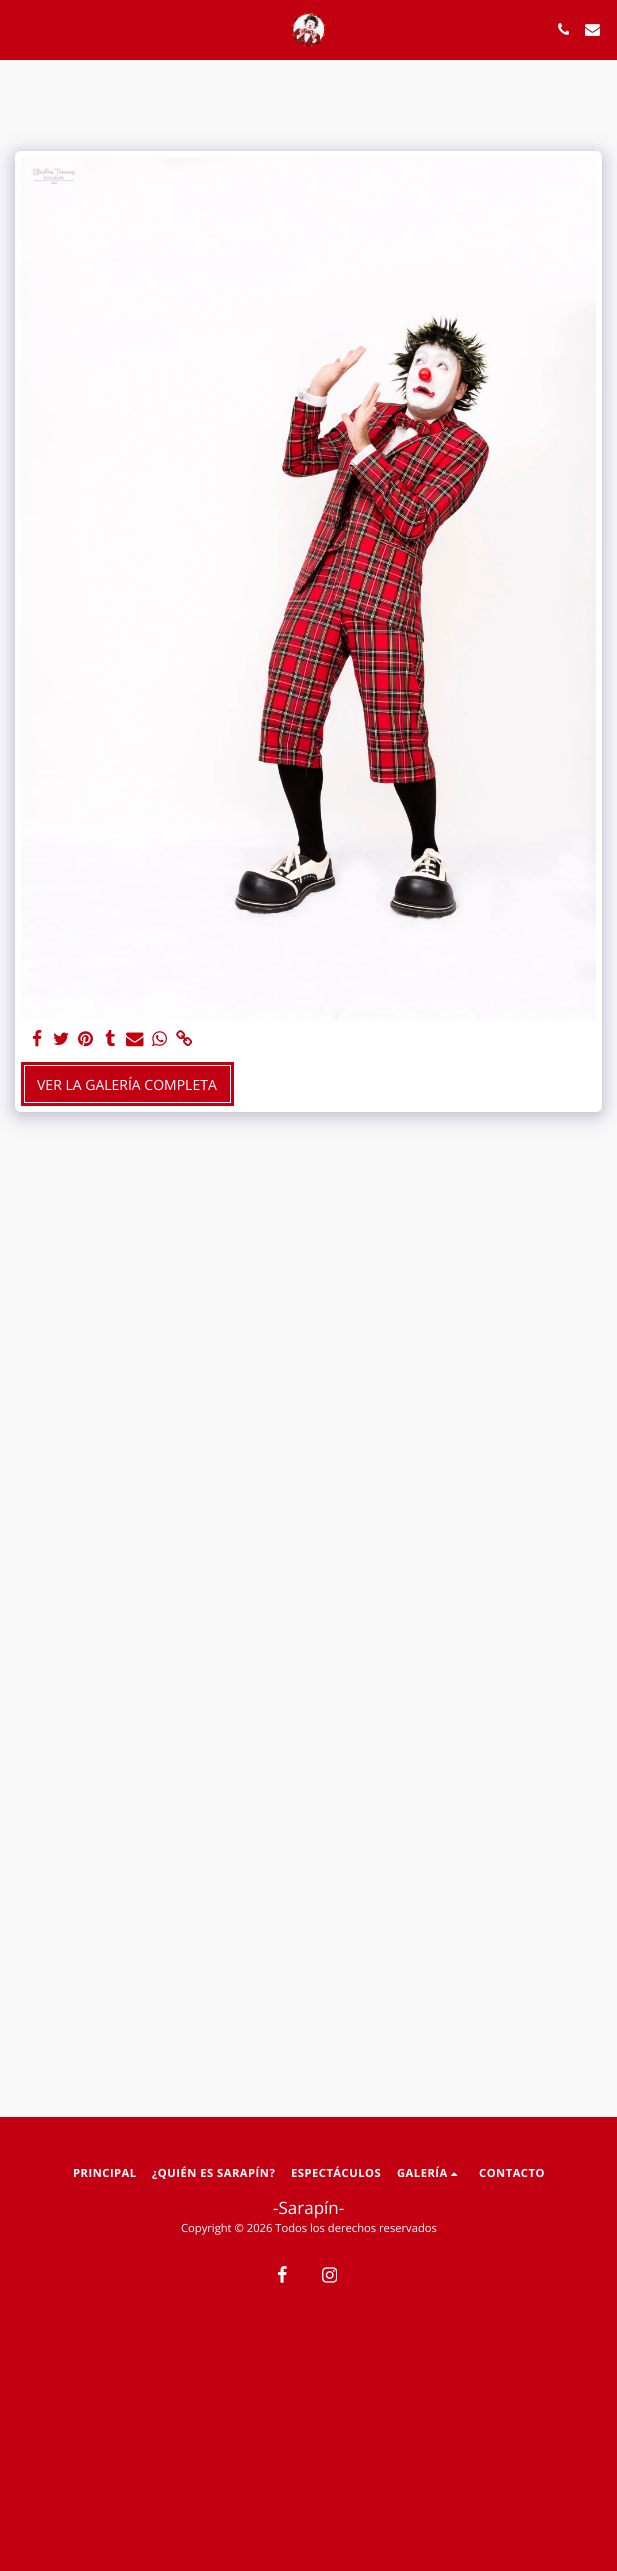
#include <cairo.h>
#include <math.h>
#include <stddef.h>

static cairo_t *c;
static void C(unsigned color){cairo_set_source_rgb(c, (color >> 16) / 255.0, (color >> 8 & 255) / 255.0, (color & 255) / 255.0);}
static void F(const char *family, double size, int italic, int bold){cairo_select_font_face(c, family, italic ? CAIRO_FONT_SLANT_ITALIC : CAIRO_FONT_SLANT_NORMAL,bold ? CAIRO_FONT_WEIGHT_BOLD : CAIRO_FONT_WEIGHT_NORMAL);cairo_set_font_size(c, size);}
static void T(double x, double y, const char *s){cairo_move_to(c, x, y);cairo_show_text(c, s);}
static void L(double x, double y, const char *s, double letter, double word){cairo_move_to(c, x, y);while (*s) {char ch[5] = {0};int n = 0;do ch[n++] = *s++; while ((*s & 0xC0) == 0x80);cairo_show_text(c, ch);cairo_rel_move_to(c, letter + word * (*ch == ' '), 0);}}
static void R(double x, double y, double w, double h){cairo_rectangle(c, x, y, w, h);cairo_fill(c);}
static void Q(double x, double y, double w, double h, double r){cairo_new_sub_path(c);cairo_arc(c, x + w - r, y + h - r, r, 0, M_PI / 2);cairo_arc(c, x + r, y + h - r, r, M_PI / 2, M_PI);cairo_arc(c, x + r, y + r, r, M_PI, 1.5 * M_PI);cairo_arc(c, x + w - r, y + r, r, 1.5 * M_PI, 2 * M_PI);cairo_close_path(c);}
static void S(double x, double y, double w, double h, double r, double blur, double alpha){cairo_push_group_with_content(c, CAIRO_CONTENT_ALPHA);cairo_set_operator(c, CAIRO_OPERATOR_SOURCE);for (int i = 15; i >= -15 && fmin(w, h) + blur * i / 3 > 0; i -= 2) {double e = blur * i / 6;cairo_set_source_rgba(c, 0, 0, 0, alpha * erfc((i - 1) / 8.5) / 2);Q(x - e, y - e, w + 2 * e, h + 2 * e, fmax(0, fmin(r + e + blur * .6, fmin(w, h) / 2 + e)));cairo_fill(c);}cairo_pattern_t *soft = cairo_pop_group(c);cairo_mask(c, soft);cairo_pattern_destroy(soft);}
static void I(const char *path, double x, double y, double w, double h){cairo_surface_t *image = cairo_image_surface_create_from_png(path);cairo_save(c);cairo_set_source_surface(c, image, x, y);cairo_rectangle(c, x, y, w, h);cairo_fill(c);cairo_restore(c);cairo_surface_destroy(image);}
int main(void) {
cairo_surface_t *surface = cairo_image_surface_create(CAIRO_FORMAT_RGB24, 617, 2571);
c = cairo_create(surface);
cairo_font_options_t *options = cairo_font_options_create();
cairo_font_options_set_hint_metrics(options, CAIRO_HINT_METRICS_OFF);
cairo_font_options_set_hint_style(options, CAIRO_HINT_STYLE_NONE);
cairo_set_font_options(c, options);
cairo_set_miter_limit(c, 4);
C(0xc30012);
cairo_paint(c);
I("1.png",291,12,35,35);
I("2.png",558,23,11,12);
I("3.png",585,24,15,12);
C(0xf9f9f9);
R(0,60,617,2057);
C(0x4d3f7a);
S(15,154,587,961,6,10,.4);
C(0xffffff);
Q(15,151,587,961,6);
cairo_fill(c);
I("4.png",21,157,575,863);
I("5.png",32,1030,10,17);
I("6.png",53,1032,16,13);
I("7.png",78,1031,15,16);
I("8.png",105,1030,10,17);
I("9.png",126,1032,18,15);
I("10.png",152,1031,15,16);
I("11.png",176,1030,16,17);
C(0xc30012);
R(21,1062,213,44);
cairo_rectangle(c,24.5,1065.5,206,37);
C(0xffffff);
cairo_set_line_width(c,1);
cairo_stroke(c);
F("Open Sans",14,0,0);
T(37,1090,"VER LA GALERÍA COMPLETA");
F("Open Sans",11.2,0,1);
L(73,2177,"PRINCIPAL",.5,0);
L(152,2177,"¿QUIÉN ES SARAPÍN?",.5,0);
L(291,2177,"ESPECTÁCULOS",.5,0);
L(397,2177,"GALERÍA",.5,0);
I("12.png",451,2172,7,4);
L(479,2177,"CONTACTO",.5,0);
F("Open Sans",17,0,0);
T(273,2214,"-Sarapín-");
F("Open Sans",11.2,0,0);
T(181,2232,"Copyright © 2026 Todos los derechos reservados");
I("13.png",277,2266,10,17);
I("14.png",322,2267,15,16);
cairo_surface_write_to_png(surface, "o.png");
cairo_font_options_destroy(options);
cairo_destroy(c);
cairo_surface_destroy(surface);
return 0;
}
